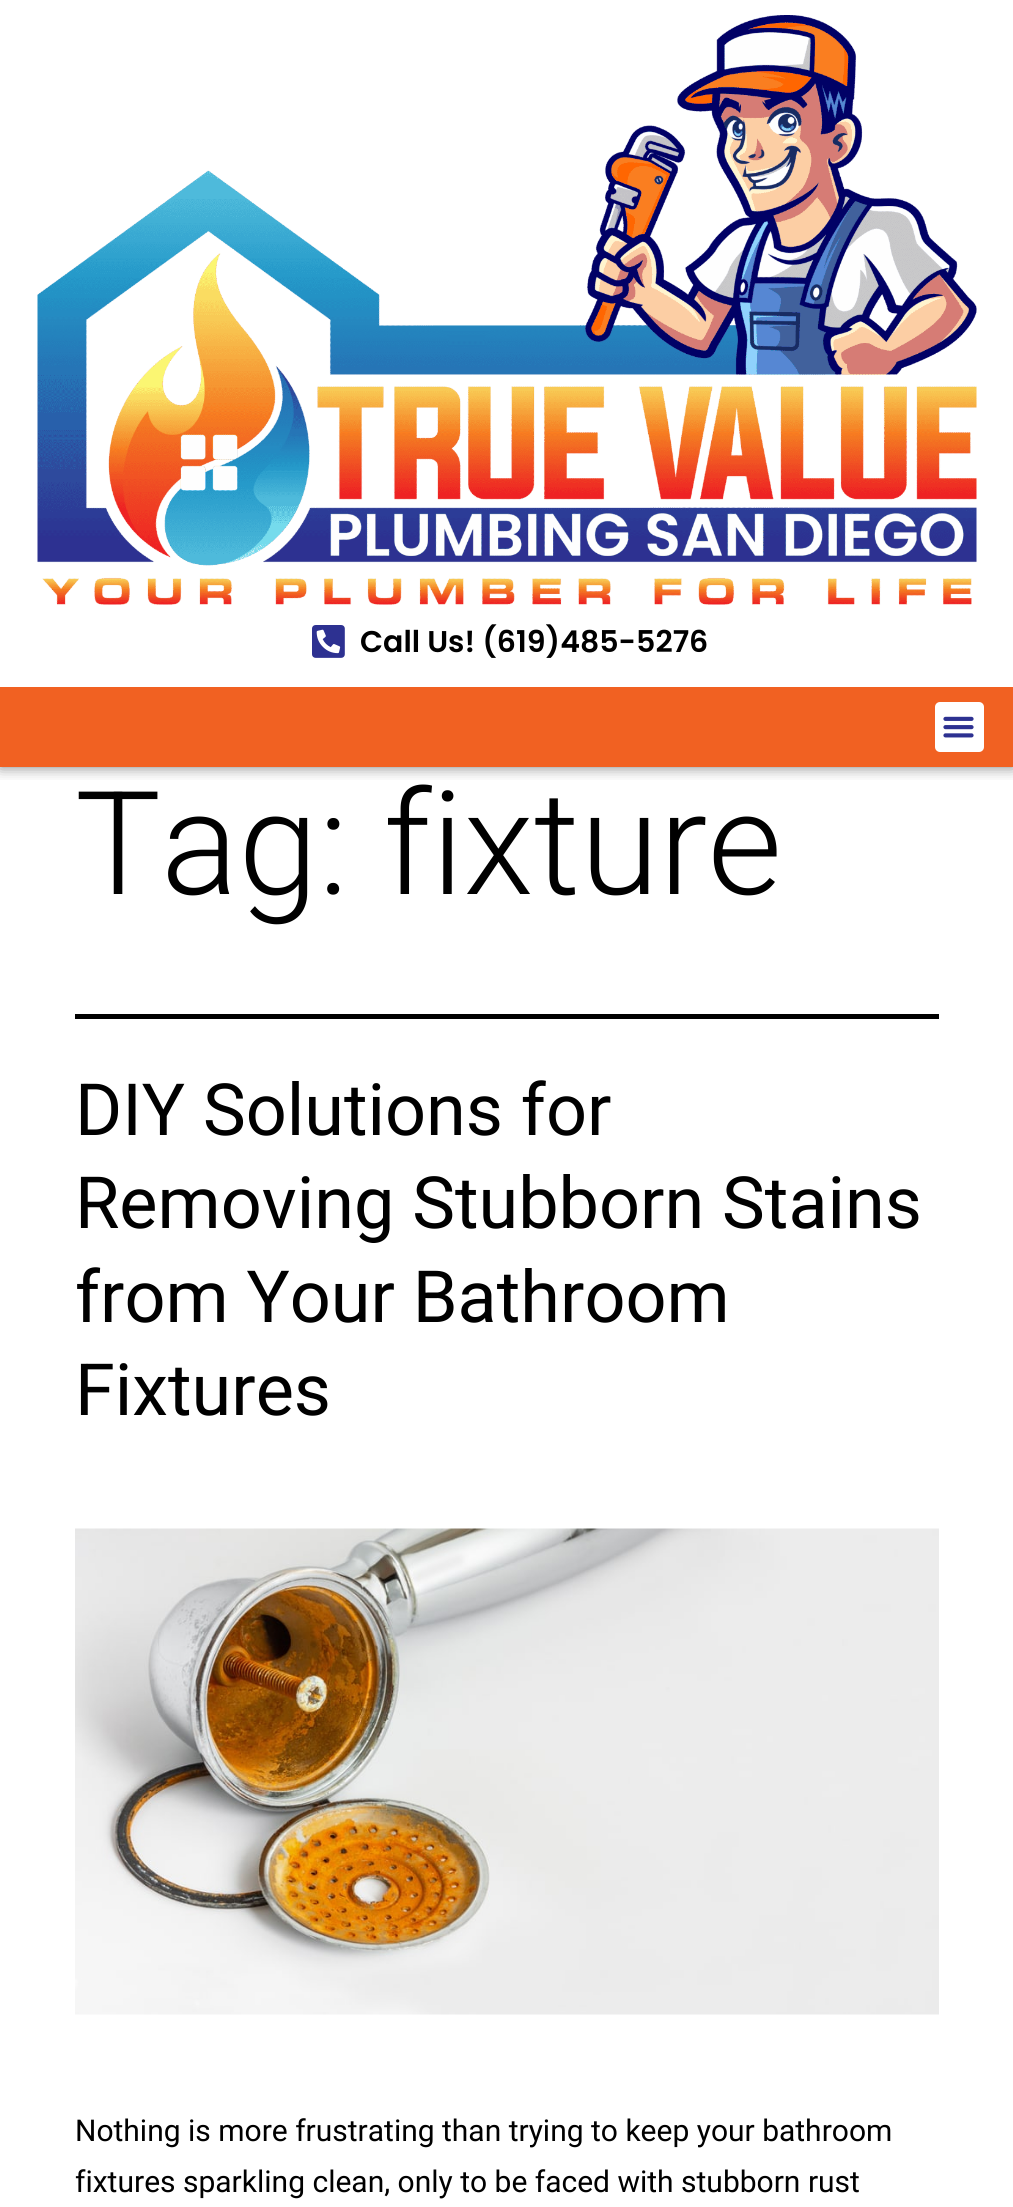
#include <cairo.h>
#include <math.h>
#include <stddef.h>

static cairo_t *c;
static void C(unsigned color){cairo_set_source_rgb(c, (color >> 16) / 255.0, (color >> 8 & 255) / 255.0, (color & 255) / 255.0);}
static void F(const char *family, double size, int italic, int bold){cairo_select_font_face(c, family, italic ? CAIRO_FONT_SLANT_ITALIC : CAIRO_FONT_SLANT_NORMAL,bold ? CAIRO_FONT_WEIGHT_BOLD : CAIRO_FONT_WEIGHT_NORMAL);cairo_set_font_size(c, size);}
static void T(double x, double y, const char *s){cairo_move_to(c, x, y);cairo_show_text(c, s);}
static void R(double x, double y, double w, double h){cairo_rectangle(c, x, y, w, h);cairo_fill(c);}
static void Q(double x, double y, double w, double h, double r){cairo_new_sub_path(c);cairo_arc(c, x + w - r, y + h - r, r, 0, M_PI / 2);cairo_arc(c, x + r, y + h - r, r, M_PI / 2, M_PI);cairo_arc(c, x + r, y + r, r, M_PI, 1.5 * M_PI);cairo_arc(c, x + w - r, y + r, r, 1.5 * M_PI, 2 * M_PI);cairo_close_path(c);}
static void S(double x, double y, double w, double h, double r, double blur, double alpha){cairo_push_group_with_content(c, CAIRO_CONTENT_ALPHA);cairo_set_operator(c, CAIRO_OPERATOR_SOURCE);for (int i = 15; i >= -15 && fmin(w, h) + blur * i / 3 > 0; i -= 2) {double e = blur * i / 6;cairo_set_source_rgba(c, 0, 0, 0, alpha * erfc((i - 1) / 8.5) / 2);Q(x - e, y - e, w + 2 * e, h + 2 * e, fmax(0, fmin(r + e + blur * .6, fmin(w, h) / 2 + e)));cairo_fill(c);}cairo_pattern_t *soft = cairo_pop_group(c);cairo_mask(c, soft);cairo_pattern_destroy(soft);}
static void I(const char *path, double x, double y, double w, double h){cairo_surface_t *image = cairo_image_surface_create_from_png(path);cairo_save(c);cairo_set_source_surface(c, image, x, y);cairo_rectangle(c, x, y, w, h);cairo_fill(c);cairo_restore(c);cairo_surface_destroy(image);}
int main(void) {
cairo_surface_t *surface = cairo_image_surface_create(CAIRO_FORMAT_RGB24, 1013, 2207);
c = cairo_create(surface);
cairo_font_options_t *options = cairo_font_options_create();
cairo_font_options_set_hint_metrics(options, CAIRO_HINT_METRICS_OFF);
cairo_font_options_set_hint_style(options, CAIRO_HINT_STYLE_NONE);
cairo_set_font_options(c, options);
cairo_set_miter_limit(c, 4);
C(0xffffff);
cairo_paint(c);
cairo_save(c);
cairo_rectangle(c,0,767,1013,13);
cairo_clip(c);
C(0x000000);
S(0,0,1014,767,0,7.5,.5);
cairo_restore(c);
I("1.png",37,15,940,590);
I("2.png",312,625,33,33);
F("Poppins SemiBold",30,0,0);
C(0x000000);
T(360,652,"Call Us! (619)485-5276");
C(0xf16122);
R(0,687,1013,80);
C(0xffffff);
Q(935,702,49,50,5);
cairo_fill(c);
I("3.png",943,716,31,22);
C(0x000000);
R(75,1014,864,5);
F("Roboto Light",144,0,0);
T(75,894,"Tag: fixture");
F("Roboto",72,0,0);
T(75,1135,"DIY Solutions for");
T(75,1228,"Removing Stubborn Stains");
T(75,1322,"from Your Bathroom");
T(75,1415,"Fixtures");
I("4.png",75,1528,864,487);
F("Roboto",30,0,0);
T(75,2141,"Nothing is more frustrating than trying to keep your bathroom");
T(75,2192,"fixtures sparkling clean, only to be faced with stubborn rust");
cairo_surface_write_to_png(surface, "o.png");
cairo_font_options_destroy(options);
cairo_destroy(c);
cairo_surface_destroy(surface);
return 0;
}
